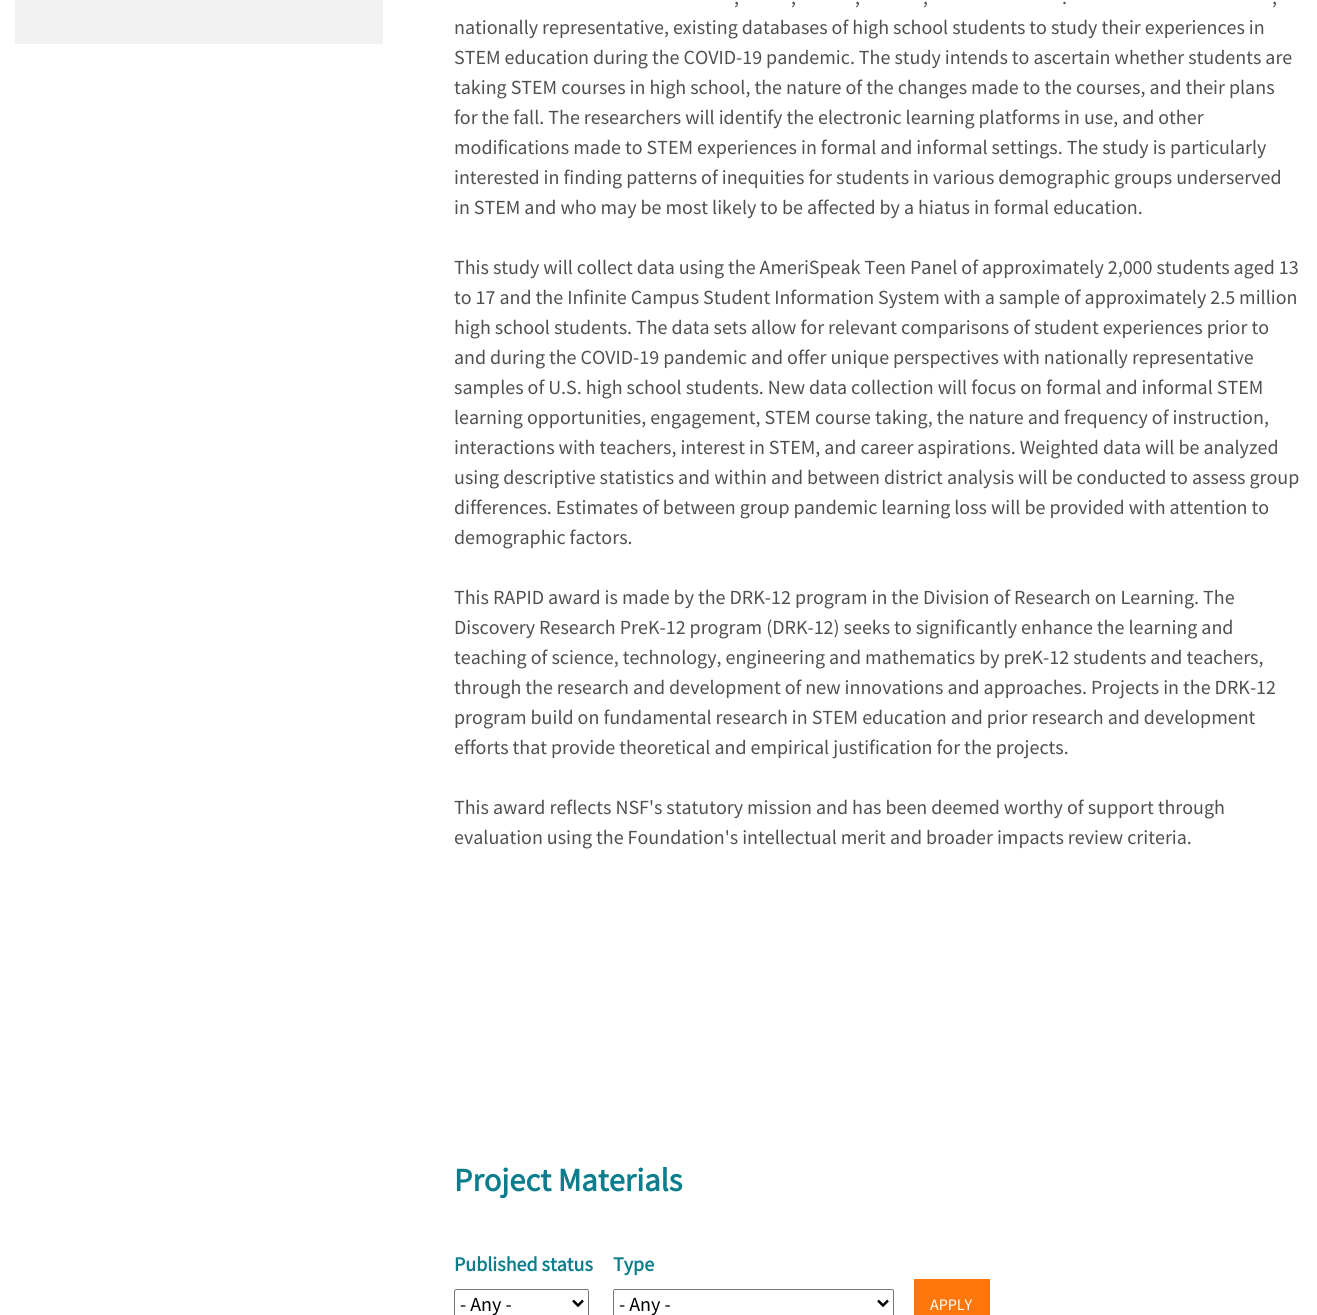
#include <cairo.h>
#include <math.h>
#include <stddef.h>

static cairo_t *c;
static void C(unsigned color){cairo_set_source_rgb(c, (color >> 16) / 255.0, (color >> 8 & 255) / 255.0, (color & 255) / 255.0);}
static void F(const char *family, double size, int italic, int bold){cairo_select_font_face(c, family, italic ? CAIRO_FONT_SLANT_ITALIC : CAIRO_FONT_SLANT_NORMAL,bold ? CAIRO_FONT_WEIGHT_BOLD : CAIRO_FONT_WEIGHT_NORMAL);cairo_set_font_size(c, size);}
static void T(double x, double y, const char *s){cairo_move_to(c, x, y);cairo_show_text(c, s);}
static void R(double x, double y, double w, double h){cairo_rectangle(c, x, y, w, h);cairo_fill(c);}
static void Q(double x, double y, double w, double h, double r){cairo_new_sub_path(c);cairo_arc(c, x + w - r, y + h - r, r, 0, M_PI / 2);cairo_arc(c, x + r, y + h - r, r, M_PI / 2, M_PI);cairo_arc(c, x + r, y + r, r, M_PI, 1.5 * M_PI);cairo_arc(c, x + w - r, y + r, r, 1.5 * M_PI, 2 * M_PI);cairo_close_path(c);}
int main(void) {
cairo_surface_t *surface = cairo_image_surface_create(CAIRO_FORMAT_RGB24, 1317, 1315);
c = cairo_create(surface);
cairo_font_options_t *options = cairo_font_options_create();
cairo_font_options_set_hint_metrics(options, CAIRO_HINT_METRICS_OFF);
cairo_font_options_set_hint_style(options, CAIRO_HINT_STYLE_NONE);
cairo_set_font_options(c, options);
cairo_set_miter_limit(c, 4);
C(0xffffff);
cairo_paint(c);
C(0xf1f1f1);
R(15,0,368,44);
F("Source Sans Pro",20,0,0);
C(0x505050);
T(734,4,",");
T(791,4,",");
T(855,4,",");
T(923,4,",");
T(1062,4,".");
T(1272,4,",");
T(454,34,"nationally representative, existing databases of high school students to study their experiences in");
T(454,64,"STEM education during the COVID-19 pandemic. The study intends to ascertain whether students are");
T(454,94,"taking STEM courses in high school, the nature of the changes made to the courses, and their plans");
T(454,124,"for the fall. The researchers will identify the electronic learning platforms in use, and other");
T(454,154,"modifications made to STEM experiences in formal and informal settings. The study is particularly");
T(454,184,"interested in finding patterns of inequities for students in various demographic groups underserved");
T(454,214,"in STEM and who may be most likely to be affected by a hiatus in formal education.");
T(454,274,"This study will collect data using the AmeriSpeak Teen Panel of approximately 2,000 students aged 13");
T(454,304,"to 17 and the Infinite Campus Student Information System with a sample of approximately 2.5 million");
T(454,334,"high school students. The data sets allow for relevant comparisons of student experiences prior to");
T(454,364,"and during the COVID-19 pandemic and offer unique perspectives with nationally representative");
T(454,394,"samples of U.S. high school students. New data collection will focus on formal and informal STEM");
T(454,424,"learning opportunities, engagement, STEM course taking, the nature and frequency of instruction,");
T(454,454,"interactions with teachers, interest in STEM, and career aspirations. Weighted data will be analyzed");
T(454,484,"using descriptive statistics and within and between district analysis will be conducted to assess group");
T(454,514,"differences. Estimates of between group pandemic learning loss will be provided with attention to");
T(454,544,"demographic factors.");
T(454,604,"This RAPID award is made by the DRK-12 program in the Division of Research on Learning. The");
T(454,634,"Discovery Research PreK-12 program (DRK-12) seeks to significantly enhance the learning and");
T(454,664,"teaching of science, technology, engineering and mathematics by preK-12 students and teachers,");
T(454,694,"through the research and development of new innovations and approaches. Projects in the DRK-12");
T(454,724,"program build on fundamental research in STEM education and prior research and development");
T(454,754,"efforts that provide theoretical and empirical justification for the projects.");
T(454,814,"This award reflects NSF's statutory mission and has been deemed worthy of support through");
T(454,844,"evaluation using the Foundation's intellectual merit and broader impacts review criteria.");
F("Source Sans Pro",32.5,0,1);
C(0x0b7d8c);
T(454,1191,"Project Materials");
F("Source Sans Pro",20,0,1);
T(454,1271,"Published status");
Q(454.5,1289.5,134,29,2);
C(0x767676);
cairo_set_line_width(c,1);
cairo_stroke(c);
cairo_new_path(c);
cairo_move_to(c,573,1300.5);
cairo_line_to(c,578,1305.5);
cairo_line_to(c,583,1300.5);
C(0x000000);
cairo_set_line_width(c,2.5);
cairo_stroke(c);
F("Source Sans Pro",20,0,0);
T(460,1311,"- Any -");
F("Source Sans Pro",20,0,1);
C(0x0b7d8c);
T(613,1271,"Type");
Q(613.5,1289.5,280,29,2);
C(0x767676);
cairo_set_line_width(c,1);
cairo_stroke(c);
cairo_new_path(c);
cairo_move_to(c,878,1300.5);
cairo_line_to(c,883,1305.5);
cairo_line_to(c,888,1300.5);
C(0x000000);
cairo_set_line_width(c,2.5);
cairo_stroke(c);
F("Source Sans Pro",20,0,0);
T(619,1311,"- Any -");
C(0xff770c);
R(914,1279,76,36);
F("Source Sans Pro",16,0,0);
C(0xffffff);
T(930,1310,"APPLY");
cairo_surface_write_to_png(surface, "o.png");
cairo_font_options_destroy(options);
cairo_destroy(c);
cairo_surface_destroy(surface);
return 0;
}
